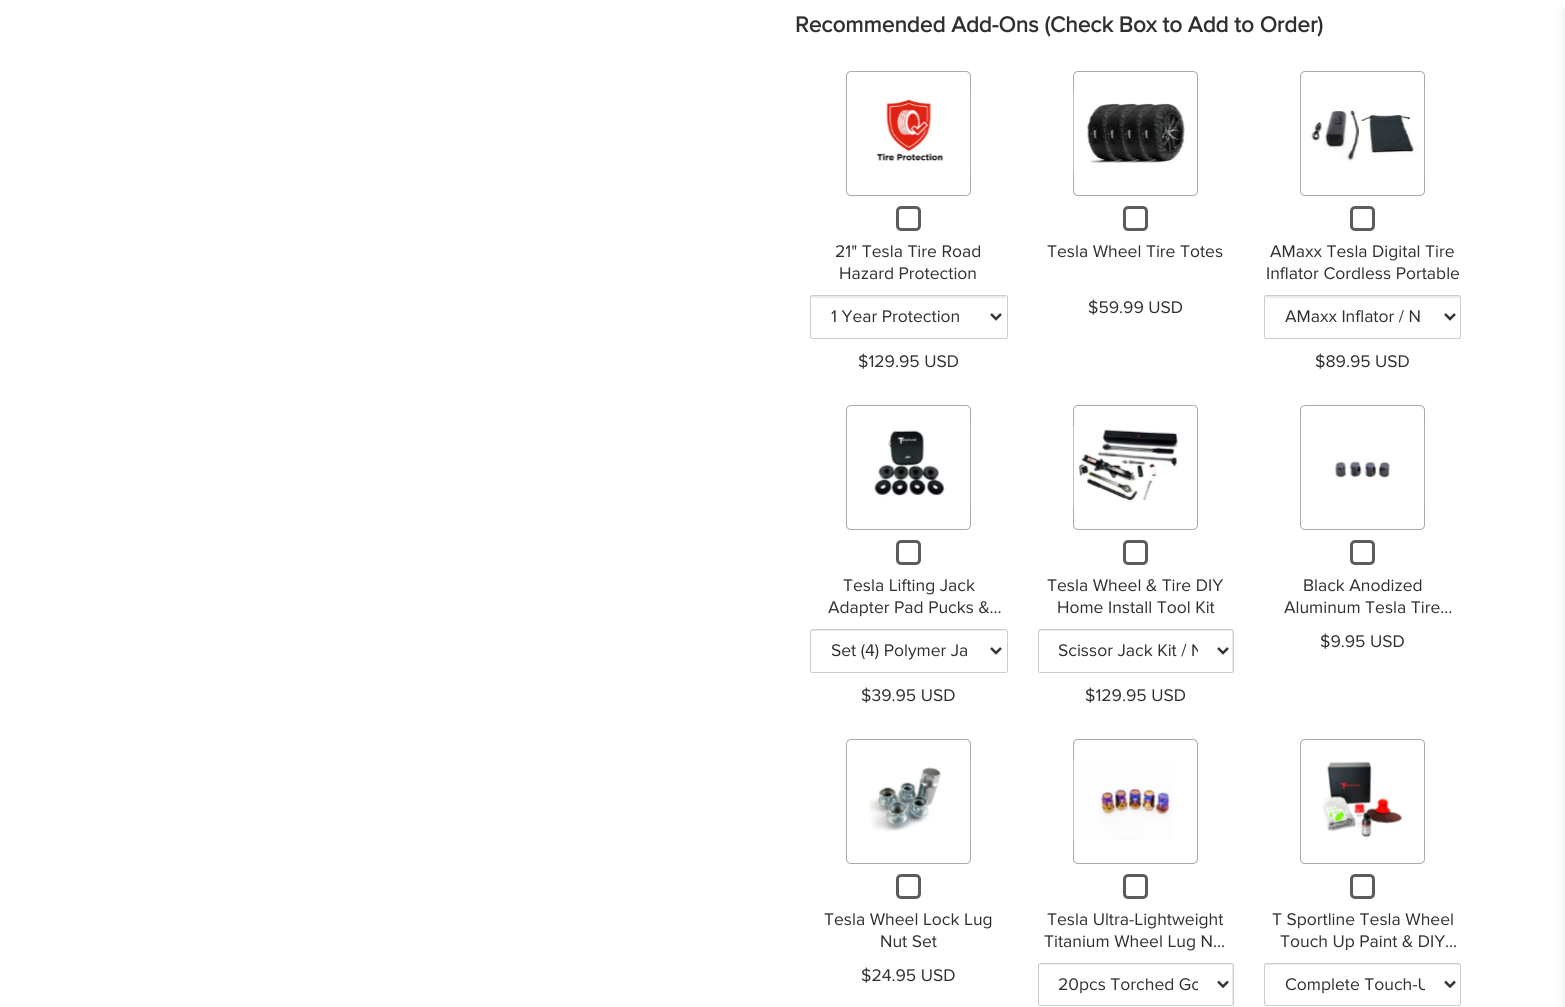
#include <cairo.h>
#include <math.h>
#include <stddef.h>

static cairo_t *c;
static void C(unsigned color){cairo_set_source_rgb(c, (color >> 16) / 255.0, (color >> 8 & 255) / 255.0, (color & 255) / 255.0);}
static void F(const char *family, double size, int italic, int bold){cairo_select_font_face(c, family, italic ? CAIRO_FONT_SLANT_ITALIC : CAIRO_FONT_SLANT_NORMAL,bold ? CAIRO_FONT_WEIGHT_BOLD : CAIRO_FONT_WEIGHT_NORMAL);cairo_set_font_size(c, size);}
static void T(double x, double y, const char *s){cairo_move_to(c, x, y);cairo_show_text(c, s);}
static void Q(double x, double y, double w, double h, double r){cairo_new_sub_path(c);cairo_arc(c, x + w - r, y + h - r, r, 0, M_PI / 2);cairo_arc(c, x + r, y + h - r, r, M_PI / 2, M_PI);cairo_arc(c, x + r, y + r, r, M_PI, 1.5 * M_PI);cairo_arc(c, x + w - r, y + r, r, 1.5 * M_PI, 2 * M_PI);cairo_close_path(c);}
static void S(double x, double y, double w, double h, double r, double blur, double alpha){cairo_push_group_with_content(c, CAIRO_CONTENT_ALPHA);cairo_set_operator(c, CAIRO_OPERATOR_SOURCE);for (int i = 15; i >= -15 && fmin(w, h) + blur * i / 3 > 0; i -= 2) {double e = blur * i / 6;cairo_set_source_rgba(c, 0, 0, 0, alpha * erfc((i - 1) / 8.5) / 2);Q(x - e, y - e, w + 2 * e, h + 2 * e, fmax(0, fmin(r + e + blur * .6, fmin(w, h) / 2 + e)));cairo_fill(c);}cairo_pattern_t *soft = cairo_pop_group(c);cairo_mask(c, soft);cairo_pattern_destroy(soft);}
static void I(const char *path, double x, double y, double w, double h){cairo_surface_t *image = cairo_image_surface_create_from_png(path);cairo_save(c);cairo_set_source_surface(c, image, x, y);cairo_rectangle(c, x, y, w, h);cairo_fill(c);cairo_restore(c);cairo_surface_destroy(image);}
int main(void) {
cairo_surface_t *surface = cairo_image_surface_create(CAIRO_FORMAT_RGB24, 1565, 1007);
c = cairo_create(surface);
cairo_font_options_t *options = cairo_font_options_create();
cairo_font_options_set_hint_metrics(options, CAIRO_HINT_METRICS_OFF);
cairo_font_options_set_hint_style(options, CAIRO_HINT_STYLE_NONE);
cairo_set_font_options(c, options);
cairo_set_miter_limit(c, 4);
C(0xffffff);
cairo_paint(c);
F("Proxima Nova",22.5,0,1);
C(0x2f2f2f);
T(795,32,"Recommended Add-Ons (Check Box to Add to Order)");
Q(846.5,71.5,124,124,4.5);
C(0xaaaaaa);
cairo_set_line_width(c,1);
cairo_stroke(c);
I("1.png",876,92,95,81);
Q(897.5,207.5,22,22,3.5);
C(0x5c5c5c);
cairo_set_line_width(c,3);
cairo_stroke(c);
F("Proxima Nova",17.5,0,0);
C(0x2f2f2f);
T(835,257,"21\" Tesla Tire Road");
T(839,279,"Hazard Protection");
C(0xebebeb);
cairo_new_path(c);
cairo_move_to(c,812,298);
cairo_line_to(c,1006,298);
cairo_line_to(c,1006,299);
cairo_curve_to(c,1006,298,1006,296,1005,296);
cairo_line_to(c,812,296);
cairo_curve_to(c,811,296,811,298,811,299);
cairo_close_path(c);
cairo_fill(c);
Q(810.5,295.5,197,43,2);
C(0xcccccc);
cairo_set_line_width(c,1);
cairo_stroke(c);
cairo_new_path(c);
cairo_move_to(c,991,314);
cairo_line_to(c,996,319);
cairo_line_to(c,1001,314);
C(0x333333);
cairo_set_line_width(c,2.5);
cairo_stroke(c);
C(0x2f2f2f);
T(831,322,"1 Year Protection");
T(858,367,"$129.95 USD");
Q(1073.5,71.5,124,124,4.5);
C(0xaaaaaa);
cairo_set_line_width(c,1);
cairo_stroke(c);
I("2.png",1073,92,112,82);
Q(1124.5,207.5,22,22,3.5);
C(0x5c5c5c);
cairo_set_line_width(c,3);
cairo_stroke(c);
C(0x2f2f2f);
T(1047,257,"Tesla Wheel Tire Totes");
T(1088,313,"$59.99 USD");
Q(1300.5,71.5,124,124,4.5);
C(0xaaaaaa);
cairo_set_line_width(c,1);
cairo_stroke(c);
I("3.png",1310,92,115,81);
Q(1351.5,207.5,22,22,3.5);
C(0x5c5c5c);
cairo_set_line_width(c,3);
cairo_stroke(c);
C(0x2f2f2f);
T(1270,257,"AMaxx Tesla Digital Tire");
T(1266,279,"Inflator Cordless Portable");
C(0xebebeb);
cairo_new_path(c);
cairo_move_to(c,1266,298);
cairo_line_to(c,1459,298);
cairo_line_to(c,1460,299);
cairo_curve_to(c,1460,298,1460,296,1459,296);
cairo_line_to(c,1266,296);
cairo_curve_to(c,1265,296,1265,298,1265,299);
cairo_close_path(c);
cairo_fill(c);
Q(1264.5,295.5,196,43,2);
C(0xcccccc);
cairo_set_line_width(c,1);
cairo_stroke(c);
cairo_new_path(c);
cairo_move_to(c,1445,314);
cairo_line_to(c,1450,319);
cairo_line_to(c,1455,314);
C(0x333333);
cairo_set_line_width(c,2.5);
cairo_stroke(c);
C(0x2f2f2f);
T(1285,322,"AMaxx Inflator / N");
T(1315,367,"$89.95 USD");
Q(846.5,405.5,124,124,4.5);
C(0xaaaaaa);
cairo_set_line_width(c,1);
cairo_stroke(c);
I("4.png",874,426,97,81);
Q(897.5,541.5,22,22,3.5);
C(0x5c5c5c);
cairo_set_line_width(c,3);
cairo_stroke(c);
C(0x2f2f2f);
T(843,591,"Tesla Lifting Jack");
T(828,613,"Adapter Pad Pucks &…");
C(0xebebeb);
cairo_new_path(c);
cairo_move_to(c,812,631);
cairo_line_to(c,1005,631);
cairo_line_to(c,1006,632);
cairo_curve_to(c,1006,631,1006,630,1005,630);
cairo_line_to(c,811,630);
cairo_line_to(c,811,632);
cairo_close_path(c);
cairo_fill(c);
Q(810.5,629.5,197,43,2);
C(0xcccccc);
cairo_set_line_width(c,1);
cairo_stroke(c);
cairo_new_path(c);
cairo_move_to(c,991,648);
cairo_line_to(c,996,653);
cairo_line_to(c,1001,648);
C(0x333333);
cairo_set_line_width(c,2.5);
cairo_stroke(c);
C(0x2f2f2f);
T(831,656,"Set (4) Polymer Ja");
T(861,701,"$39.95 USD");
Q(1073.5,405.5,124,124,4.5);
C(0xaaaaaa);
cairo_set_line_width(c,1);
cairo_stroke(c);
I("5.png",1073,425,105,83);
Q(1124.5,541.5,22,22,3.5);
C(0x5c5c5c);
cairo_set_line_width(c,3);
cairo_stroke(c);
C(0x2f2f2f);
T(1047,591,"Tesla Wheel & Tire DIY");
T(1057,613,"Home Install Tool Kit");
C(0xebebeb);
cairo_new_path(c);
cairo_move_to(c,1040,631);
cairo_line_to(c,1231,631);
cairo_curve_to(c,1232,631,1232,632,1232,632);
cairo_line_to(c,1232,671);
cairo_curve_to(c,1234,671,1233,665,1233,644);
cairo_line_to(c,1233,638);
cairo_curve_to(c,1233,636,1234,630,1232,630);
cairo_line_to(c,1039,630);
cairo_line_to(c,1039,632);
cairo_close_path(c);
cairo_fill(c);
Q(1038.5,629.5,195,43,2);
C(0xcccccc);
cairo_set_line_width(c,1);
cairo_stroke(c);
cairo_new_path(c);
cairo_move_to(c,1218,648);
cairo_line_to(c,1223,653);
cairo_line_to(c,1228,648);
C(0x333333);
cairo_set_line_width(c,2.5);
cairo_stroke(c);
cairo_save(c);
cairo_rectangle(c,1059,639,139,24);
cairo_clip(c);
C(0x2f2f2f);
T(1058,656,"Scissor Jack Kit / N");
cairo_restore(c);
C(0x2f2f2f);
T(1085,701,"$129.95 USD");
Q(1300.5,405.5,124,124,4.5);
C(0xaaaaaa);
cairo_set_line_width(c,1);
cairo_stroke(c);
I("6.png",1334,426,91,81);
Q(1351.5,541.5,22,22,3.5);
C(0x5c5c5c);
cairo_set_line_width(c,3);
cairo_stroke(c);
C(0x2f2f2f);
T(1303,591,"Black Anodized");
T(1284,613,"Aluminum Tesla Tire…");
T(1320,647,"$9.95 USD");
Q(846.5,739.5,124,124,4.5);
C(0xaaaaaa);
cairo_set_line_width(c,1);
cairo_stroke(c);
I("7.png",869,759,102,82);
Q(897.5,875.5,22,22,3.5);
C(0x5c5c5c);
cairo_set_line_width(c,3);
cairo_stroke(c);
C(0x2f2f2f);
T(824,925,"Tesla Wheel Lock Lug");
T(880,947,"Nut Set");
T(861,981,"$24.95 USD");
Q(1073.5,739.5,124,124,4.5);
C(0xaaaaaa);
cairo_set_line_width(c,1);
cairo_stroke(c);
I("8.png",1073,759,99,82);
Q(1124.5,875.5,22,22,3.5);
C(0x5c5c5c);
cairo_set_line_width(c,3);
cairo_stroke(c);
C(0x2f2f2f);
T(1047,925,"Tesla Ultra-Lightweight");
T(1044,947,"Titanium Wheel Lug N…");
C(0xebebeb);
cairo_new_path(c);
cairo_move_to(c,1040,965);
cairo_line_to(c,1231,965);
cairo_curve_to(c,1232,965,1232,966,1232,966);
cairo_line_to(c,1232,1005);
cairo_curve_to(c,1234,1005,1233,999,1233,978);
cairo_line_to(c,1233,972);
cairo_curve_to(c,1233,970,1234,964,1232,964);
cairo_line_to(c,1039,964);
cairo_line_to(c,1039,966);
cairo_close_path(c);
cairo_fill(c);
Q(1038.5,963.5,195,42,2);
C(0xcccccc);
cairo_set_line_width(c,1);
cairo_stroke(c);
cairo_new_path(c);
cairo_move_to(c,1218,981.5);
cairo_line_to(c,1223,986.5);
cairo_line_to(c,1228,981.5);
C(0x333333);
cairo_set_line_width(c,2.5);
cairo_stroke(c);
cairo_save(c);
cairo_rectangle(c,1059,973,139,23);
cairo_clip(c);
C(0x2f2f2f);
T(1058,990,"20pcs Torched Go");
cairo_restore(c);
Q(1300.5,739.5,124,124,4.5);
C(0xaaaaaa);
cairo_set_line_width(c,1);
cairo_stroke(c);
I("9.png",1322,760,103,80);
Q(1351.5,875.5,22,22,3.5);
C(0x5c5c5c);
cairo_set_line_width(c,3);
cairo_stroke(c);
C(0x2f2f2f);
T(1272,925,"T Sportline Tesla Wheel");
T(1280,947,"Touch Up Paint & DIY…");
C(0xebebeb);
cairo_new_path(c);
cairo_move_to(c,1266,965);
cairo_line_to(c,1459,965);
cairo_line_to(c,1460,966);
cairo_curve_to(c,1460,965,1460,964,1459,964);
cairo_line_to(c,1265,964);
cairo_line_to(c,1265,966);
cairo_close_path(c);
cairo_fill(c);
Q(1264.5,963.5,196,42,2);
C(0xcccccc);
cairo_set_line_width(c,1);
cairo_stroke(c);
cairo_new_path(c);
cairo_move_to(c,1445,981.5);
cairo_line_to(c,1450,986.5);
cairo_line_to(c,1455,981.5);
C(0x333333);
cairo_set_line_width(c,2.5);
cairo_stroke(c);
cairo_save(c);
cairo_rectangle(c,1285,973,140,23);
cairo_clip(c);
C(0x2f2f2f);
T(1285,990,"Complete Touch-U");
cairo_restore(c);
C(0x0a0a0a);
S(1565,10,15,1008,0,5,.1);
cairo_surface_write_to_png(surface, "o.png");
cairo_font_options_destroy(options);
cairo_destroy(c);
cairo_surface_destroy(surface);
return 0;
}
